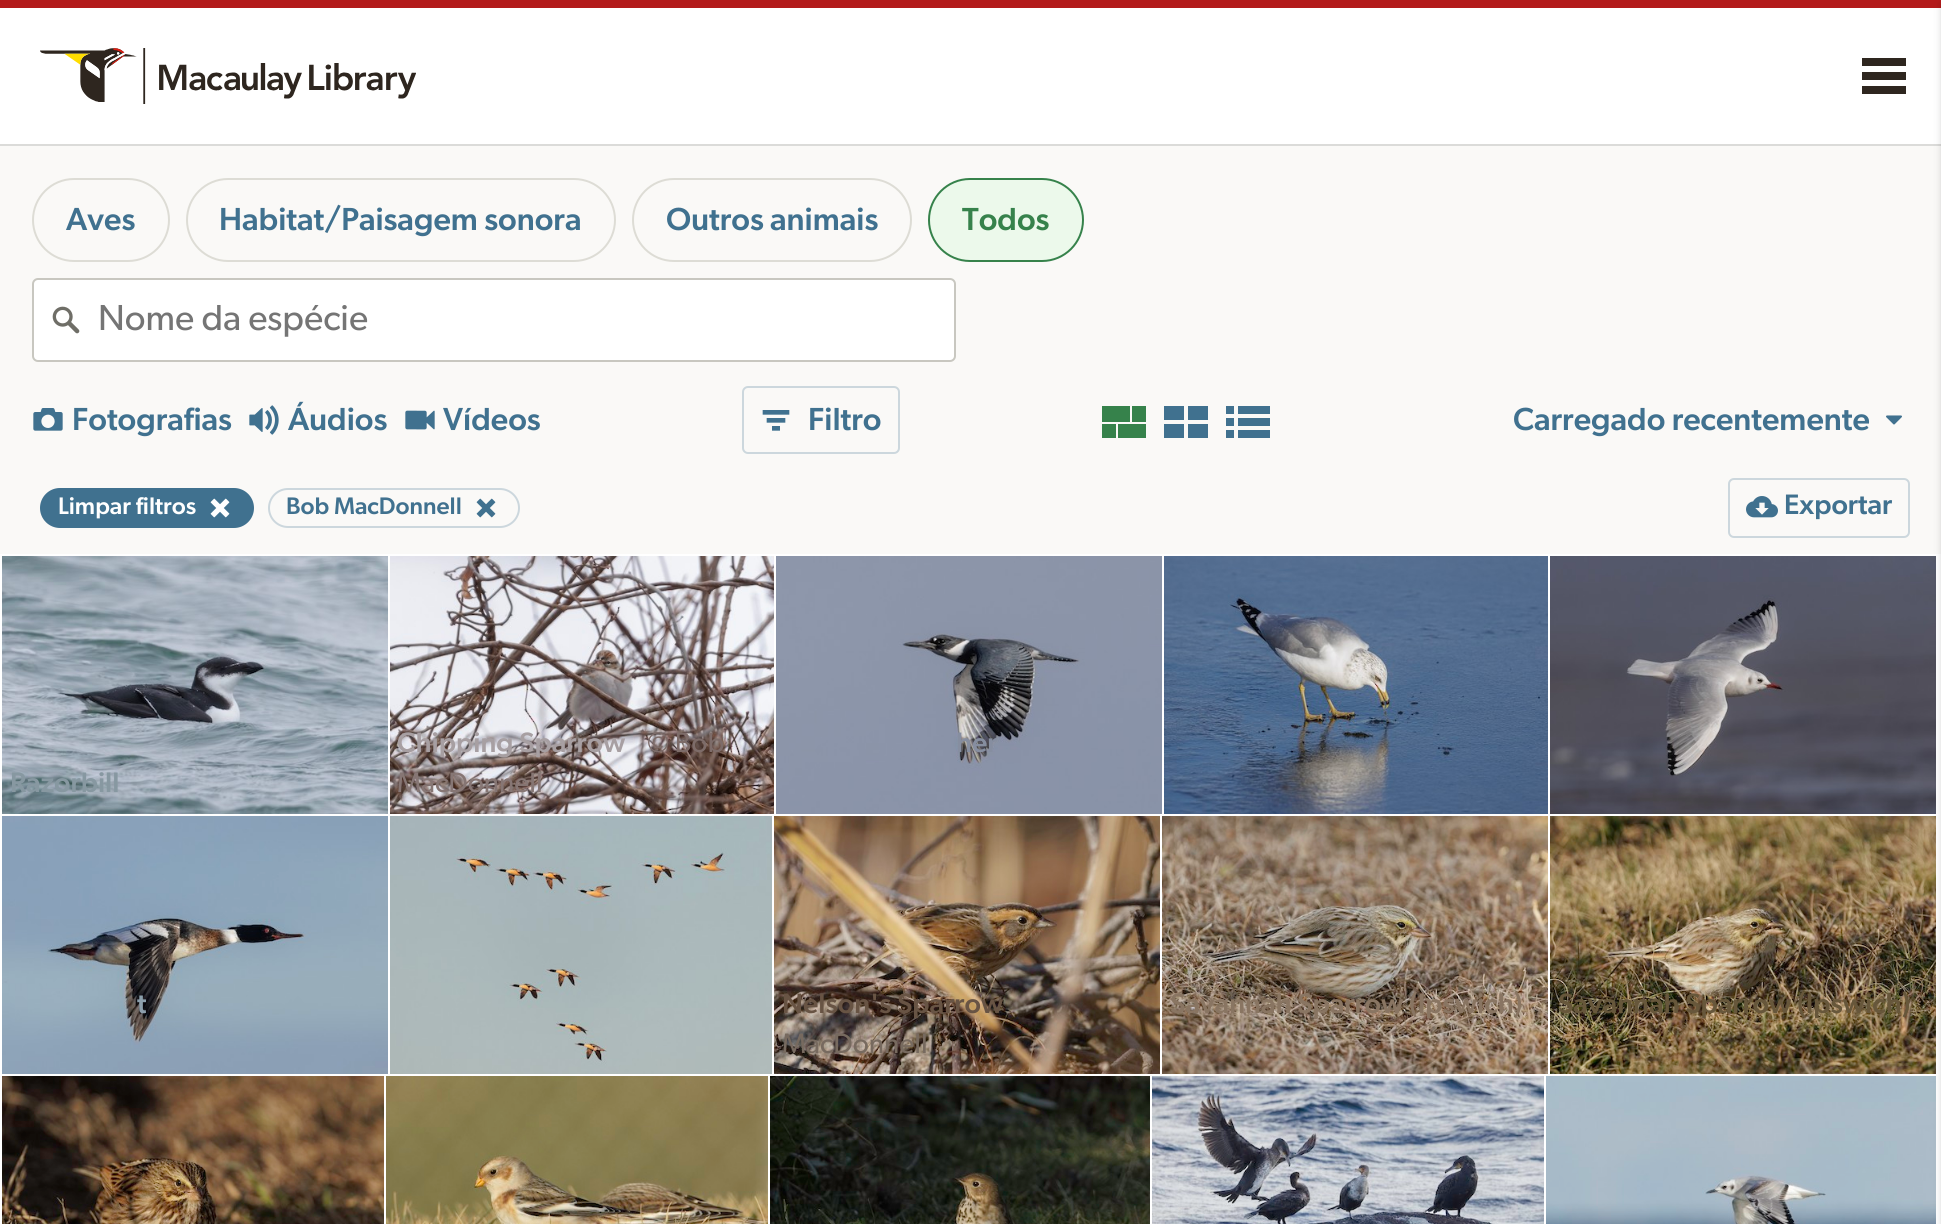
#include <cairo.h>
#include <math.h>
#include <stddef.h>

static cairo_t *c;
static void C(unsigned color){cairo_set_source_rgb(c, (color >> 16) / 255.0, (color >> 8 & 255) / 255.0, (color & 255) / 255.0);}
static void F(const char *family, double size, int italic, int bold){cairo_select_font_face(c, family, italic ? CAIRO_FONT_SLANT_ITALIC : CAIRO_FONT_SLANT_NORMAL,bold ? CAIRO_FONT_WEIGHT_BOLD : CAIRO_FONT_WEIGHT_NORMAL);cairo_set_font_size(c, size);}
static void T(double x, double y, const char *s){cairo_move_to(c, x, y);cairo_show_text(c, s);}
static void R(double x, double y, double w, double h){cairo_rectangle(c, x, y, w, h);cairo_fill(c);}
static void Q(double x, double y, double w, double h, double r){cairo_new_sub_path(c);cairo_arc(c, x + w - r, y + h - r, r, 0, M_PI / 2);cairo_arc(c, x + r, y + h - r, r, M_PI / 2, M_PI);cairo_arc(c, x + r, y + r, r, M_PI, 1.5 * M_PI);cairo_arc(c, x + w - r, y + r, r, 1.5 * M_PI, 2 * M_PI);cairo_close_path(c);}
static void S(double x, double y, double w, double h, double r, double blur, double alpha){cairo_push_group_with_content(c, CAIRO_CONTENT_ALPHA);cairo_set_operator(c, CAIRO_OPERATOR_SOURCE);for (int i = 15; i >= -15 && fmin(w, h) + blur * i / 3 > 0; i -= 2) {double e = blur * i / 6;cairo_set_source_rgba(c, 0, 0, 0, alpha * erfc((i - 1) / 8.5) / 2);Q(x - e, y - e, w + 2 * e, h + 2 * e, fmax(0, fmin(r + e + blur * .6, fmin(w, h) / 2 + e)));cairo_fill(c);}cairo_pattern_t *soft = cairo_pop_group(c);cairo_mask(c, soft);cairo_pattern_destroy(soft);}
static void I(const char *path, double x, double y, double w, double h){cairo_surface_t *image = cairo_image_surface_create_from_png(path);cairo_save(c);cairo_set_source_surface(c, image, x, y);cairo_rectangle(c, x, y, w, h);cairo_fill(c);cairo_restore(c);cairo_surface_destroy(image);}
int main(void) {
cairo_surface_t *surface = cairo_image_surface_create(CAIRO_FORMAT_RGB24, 1941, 1224);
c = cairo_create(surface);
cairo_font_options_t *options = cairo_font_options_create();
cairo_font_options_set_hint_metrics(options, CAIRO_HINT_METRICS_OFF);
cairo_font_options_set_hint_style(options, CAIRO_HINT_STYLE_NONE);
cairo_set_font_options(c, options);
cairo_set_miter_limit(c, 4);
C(0xffffff);
cairo_paint(c);
C(0xb31b1b);
R(0,0,1941,8);
C(0xdbdbd9);
R(0,144,1941,2);
I("1.png",40,48,376,56);
C(0x2e261f);
cairo_set_fill_rule(c,CAIRO_FILL_RULE_EVEN_ODD);
cairo_new_path(c);
cairo_move_to(c,1862,58);
cairo_line_to(c,1906,58);
cairo_line_to(c,1906,66);
cairo_line_to(c,1862,66);
cairo_close_path(c);
cairo_move_to(c,1862,72);
cairo_line_to(c,1906,72);
cairo_line_to(c,1906,80);
cairo_line_to(c,1862,80);
cairo_close_path(c);
cairo_move_to(c,1862,86);
cairo_line_to(c,1906,86);
cairo_line_to(c,1906,94);
cairo_line_to(c,1862,94);
cairo_close_path(c);
cairo_fill(c);
C(0xfaf9f7);
R(0,146,1941,408);
I("15.png",1550,556,386,258);
I("21.png",1550,816,386,258);
I("26.png",1546,1076,390,148);
C(0x000000);
S(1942,4,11,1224,0,4,.2);
Q(33,179,136,82,41);
C(0xdddcd5);
cairo_stroke(c);
F("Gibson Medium",32,0,0);
C(0x40718f);
T(66,230,"Aves");
Q(187,179,428,82,41);
C(0xdddcd5);
cairo_stroke(c);
C(0x40718f);
T(219,230,"Habitat/Paisagem sonora");
Q(633,179,278,82,41);
C(0xdddcd5);
cairo_stroke(c);
C(0x40718f);
T(666,230,"Outros animais");
C(0xecf9eb);
Q(929,179,154,82,41);
cairo_fill_preserve(c);
C(0x36824b);
cairo_stroke(c);
T(962,230,"Todos");
C(0xffffff);
Q(33,279,922,82,5);
cairo_fill_preserve(c);
C(0xc8c7c0);
cairo_stroke(c);
I("2.png",52,306,28,28);
F("Gibson",36.25,0,0);
C(0x757575);
T(98,330,"Nome da espécie");
I("3.png",33,408,30,23);
F("Gibson Medium",32,0,0);
C(0x40718f);
T(72,430,"Fotografias");
I("4.png",249,405,30,30);
T(288,430,"Áudios");
I("5.png",405,410,30,20);
T(443,430,"Vídeos");
Q(743,387,156,66,5);
C(0xccd7dd);
cairo_stroke(c);
I("6.png",762,410,28,21);
C(0x40718f);
T(808,430,"Filtro");
C(0x36824b);
cairo_new_path(c);
cairo_move_to(c,1102,406);
cairo_line_to(c,1130,406);
cairo_line_to(c,1130,422);
cairo_line_to(c,1102,422);
cairo_close_path(c);
cairo_move_to(c,1132,406);
cairo_line_to(c,1146,406);
cairo_line_to(c,1146,422);
cairo_line_to(c,1132,422);
cairo_close_path(c);
cairo_move_to(c,1118,424);
cairo_line_to(c,1146,424);
cairo_line_to(c,1146,438);
cairo_line_to(c,1118,438);
cairo_close_path(c);
cairo_move_to(c,1102,424);
cairo_line_to(c,1116,424);
cairo_line_to(c,1116,438);
cairo_line_to(c,1102,438);
cairo_close_path(c);
cairo_fill(c);
C(0x40718f);
cairo_new_path(c);
cairo_move_to(c,1164,406);
cairo_line_to(c,1184,406);
cairo_line_to(c,1184,420);
cairo_line_to(c,1164,420);
cairo_close_path(c);
cairo_move_to(c,1188,406);
cairo_line_to(c,1208,406);
cairo_line_to(c,1208,420);
cairo_line_to(c,1188,420);
cairo_close_path(c);
cairo_move_to(c,1164,424);
cairo_line_to(c,1184,424);
cairo_line_to(c,1184,438);
cairo_line_to(c,1164,438);
cairo_close_path(c);
cairo_move_to(c,1188,424);
cairo_line_to(c,1208,424);
cairo_line_to(c,1208,438);
cairo_line_to(c,1188,438);
cairo_close_path(c);
cairo_fill(c);
I("7.png",1226,406,44,32);
T(1513,430,"Carregado recentemente");
I("8.png",1886,415,16,10);
Q(40,488,214,40,20);
cairo_fill(c);
F("Gibson Medium",24,0,0);
C(0xffffff);
T(58,514,"Limpar filtros");
I("9.png",210,498,20,20);
Q(269,489,250,38,19);
C(0xccd7dd);
cairo_stroke(c);
C(0x40718f);
T(286,514,"Bob MacDonnell");
I("10.png",476,498,20,20);
Q(1729,479,180,58,5);
C(0xccd7dd);
cairo_stroke(c);
I("11.png",1746,496,32,22);
F("Gibson Medium",28.2,0,0);
C(0x40718f);
T(1784,514,"Exportar");
I("12.png",390,556,384,258);
C(0xa79fa2);
T(397,752,"Chipping Sparrow");
F("Gibson",28.2,0,0);
C(0x7d6c69);
T(647,752,"© Bob");
C(0x867674);
T(397,792,"MacDonnell");
I("13.png",776,556,386,258);
F("Gibson Medium",28.2,0,0);
C(0x868ea0);
T(956,752,"her");
I("14.png",1164,556,384,258);
I("16.png",2,556,386,258);
C(0x8798a1);
T(10,792,"Razorbill");
I("17.png",2,816,386,258);
C(0x8c9fac);
T(137,1013,"t");
I("18.png",390,816,382,258);
I("19.png",774,816,386,258);
C(0x685444);
T(782,1013,"Nelson's Sparrow");
F("Gibson",28.2,0,0);
C(0x776a5f);
T(782,1053,"MacDonnell");
I("20.png",1162,816,386,258);
F("Gibson Medium",28.2,0,0);
C(0x897562);
T(1170,1013,"Savannah Sparrow (Ipswich)");
C(0x67573b);
T(1558,1013,"Savannah Sparrow (Ipswich)");
I("22.png",2,1076,382,148);
I("23.png",386,1076,382,148);
I("24.png",770,1076,380,148);
I("25.png",1152,1076,392,148);
cairo_surface_write_to_png(surface, "o.png");
cairo_font_options_destroy(options);
cairo_destroy(c);
cairo_surface_destroy(surface);
return 0;
}
